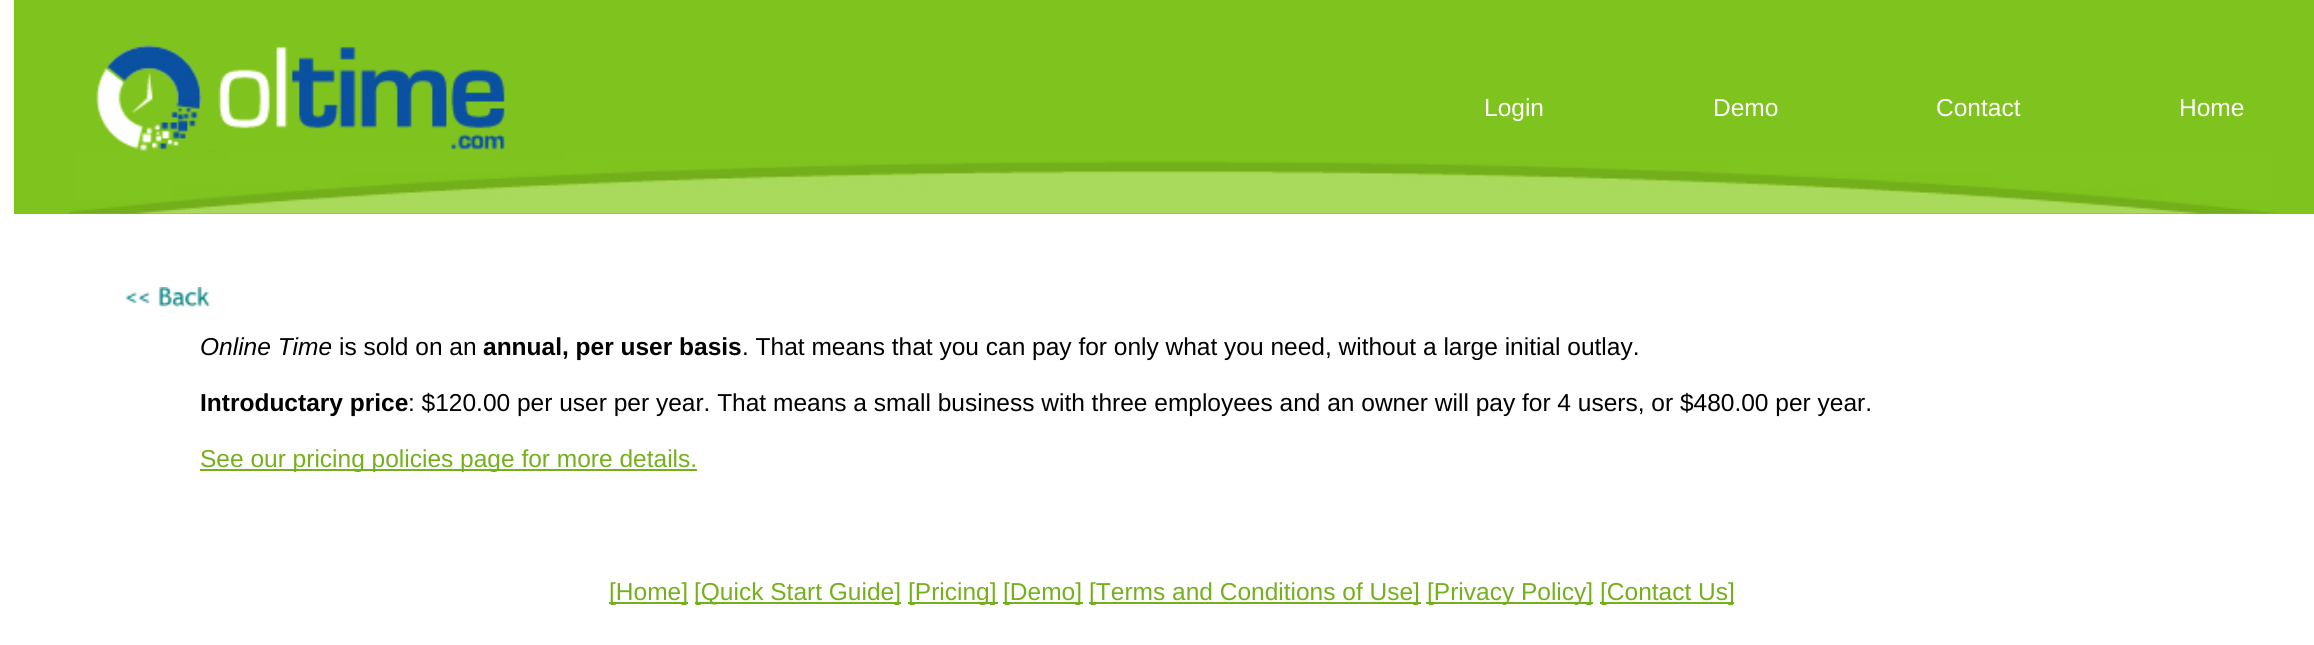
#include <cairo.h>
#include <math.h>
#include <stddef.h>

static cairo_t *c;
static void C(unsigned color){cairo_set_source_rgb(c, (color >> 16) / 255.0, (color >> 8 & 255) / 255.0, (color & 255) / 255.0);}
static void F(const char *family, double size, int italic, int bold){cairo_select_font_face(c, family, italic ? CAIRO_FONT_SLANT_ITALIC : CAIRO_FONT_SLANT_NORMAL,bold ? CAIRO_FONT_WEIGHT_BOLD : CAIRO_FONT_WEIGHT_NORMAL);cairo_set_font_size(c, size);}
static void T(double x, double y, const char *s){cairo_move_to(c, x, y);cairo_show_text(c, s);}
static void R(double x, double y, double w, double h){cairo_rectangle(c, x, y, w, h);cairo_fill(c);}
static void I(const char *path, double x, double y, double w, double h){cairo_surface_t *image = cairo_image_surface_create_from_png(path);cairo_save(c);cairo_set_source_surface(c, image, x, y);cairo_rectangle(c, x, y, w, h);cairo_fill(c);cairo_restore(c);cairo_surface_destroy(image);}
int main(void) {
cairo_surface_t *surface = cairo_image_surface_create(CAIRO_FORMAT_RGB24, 2314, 645);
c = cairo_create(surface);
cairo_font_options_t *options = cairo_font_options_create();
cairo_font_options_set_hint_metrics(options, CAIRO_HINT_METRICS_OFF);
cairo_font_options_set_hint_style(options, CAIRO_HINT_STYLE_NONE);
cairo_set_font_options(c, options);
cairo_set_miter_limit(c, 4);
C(0xffffff);
cairo_paint(c);
C(0x7fc31e);
R(14,0,2300,214);
I("1.png",70,150,2205,64);
I("2.png",96,45,409,106);
F("Liberation Sans",24.5,0,0);
C(0xffffff);
T(1484,116,"Login");
T(1713,116,"Demo");
T(1936,116,"Contact");
T(2179,116,"Home");
I("3.png",126,287,84,20);
F("Liberation Sans",24.5,1,0);
C(0x000000);
T(200,355,"Online Time");
F("Liberation Sans",24.5,0,0);
T(339,355,"is sold on an");
F("Liberation Sans",24.5,0,1);
T(483,355,"annual, per user basis");
F("Liberation Sans",24.5,0,0);
T(742,355,". That means that you can pay for only what you need, without a large initial outlay.");
F("Liberation Sans",24.5,0,1);
T(200,411,"Introductary price");
F("Liberation Sans",24.5,0,0);
T(408,411,": $120.00 per user per year. That means a small business with three employees and an owner will pay for 4 users, or $480.00 per year.");
C(0x73b01b);
R(200,469,497,2);
T(200,467,"See our pricing policies page for more details.");
R(609,602,79,2);
T(609,600,"[Home]");
R(695,602,206,2);
T(694,600,"[Quick Start Guide]");
R(908,602,90,2);
T(908,600,"[Pricing]");
R(1003,602,80,2);
T(1003,600,"[Demo]");
R(1089,602,332,2);
T(1089,600,"[Terms and Conditions of Use]");
R(1426,602,167,2);
T(1427,600,"[Privacy Policy]");
R(1600,602,134,2);
T(1600,600,"[Contact Us]");
cairo_surface_write_to_png(surface, "o.png");
cairo_font_options_destroy(options);
cairo_destroy(c);
cairo_surface_destroy(surface);
return 0;
}
